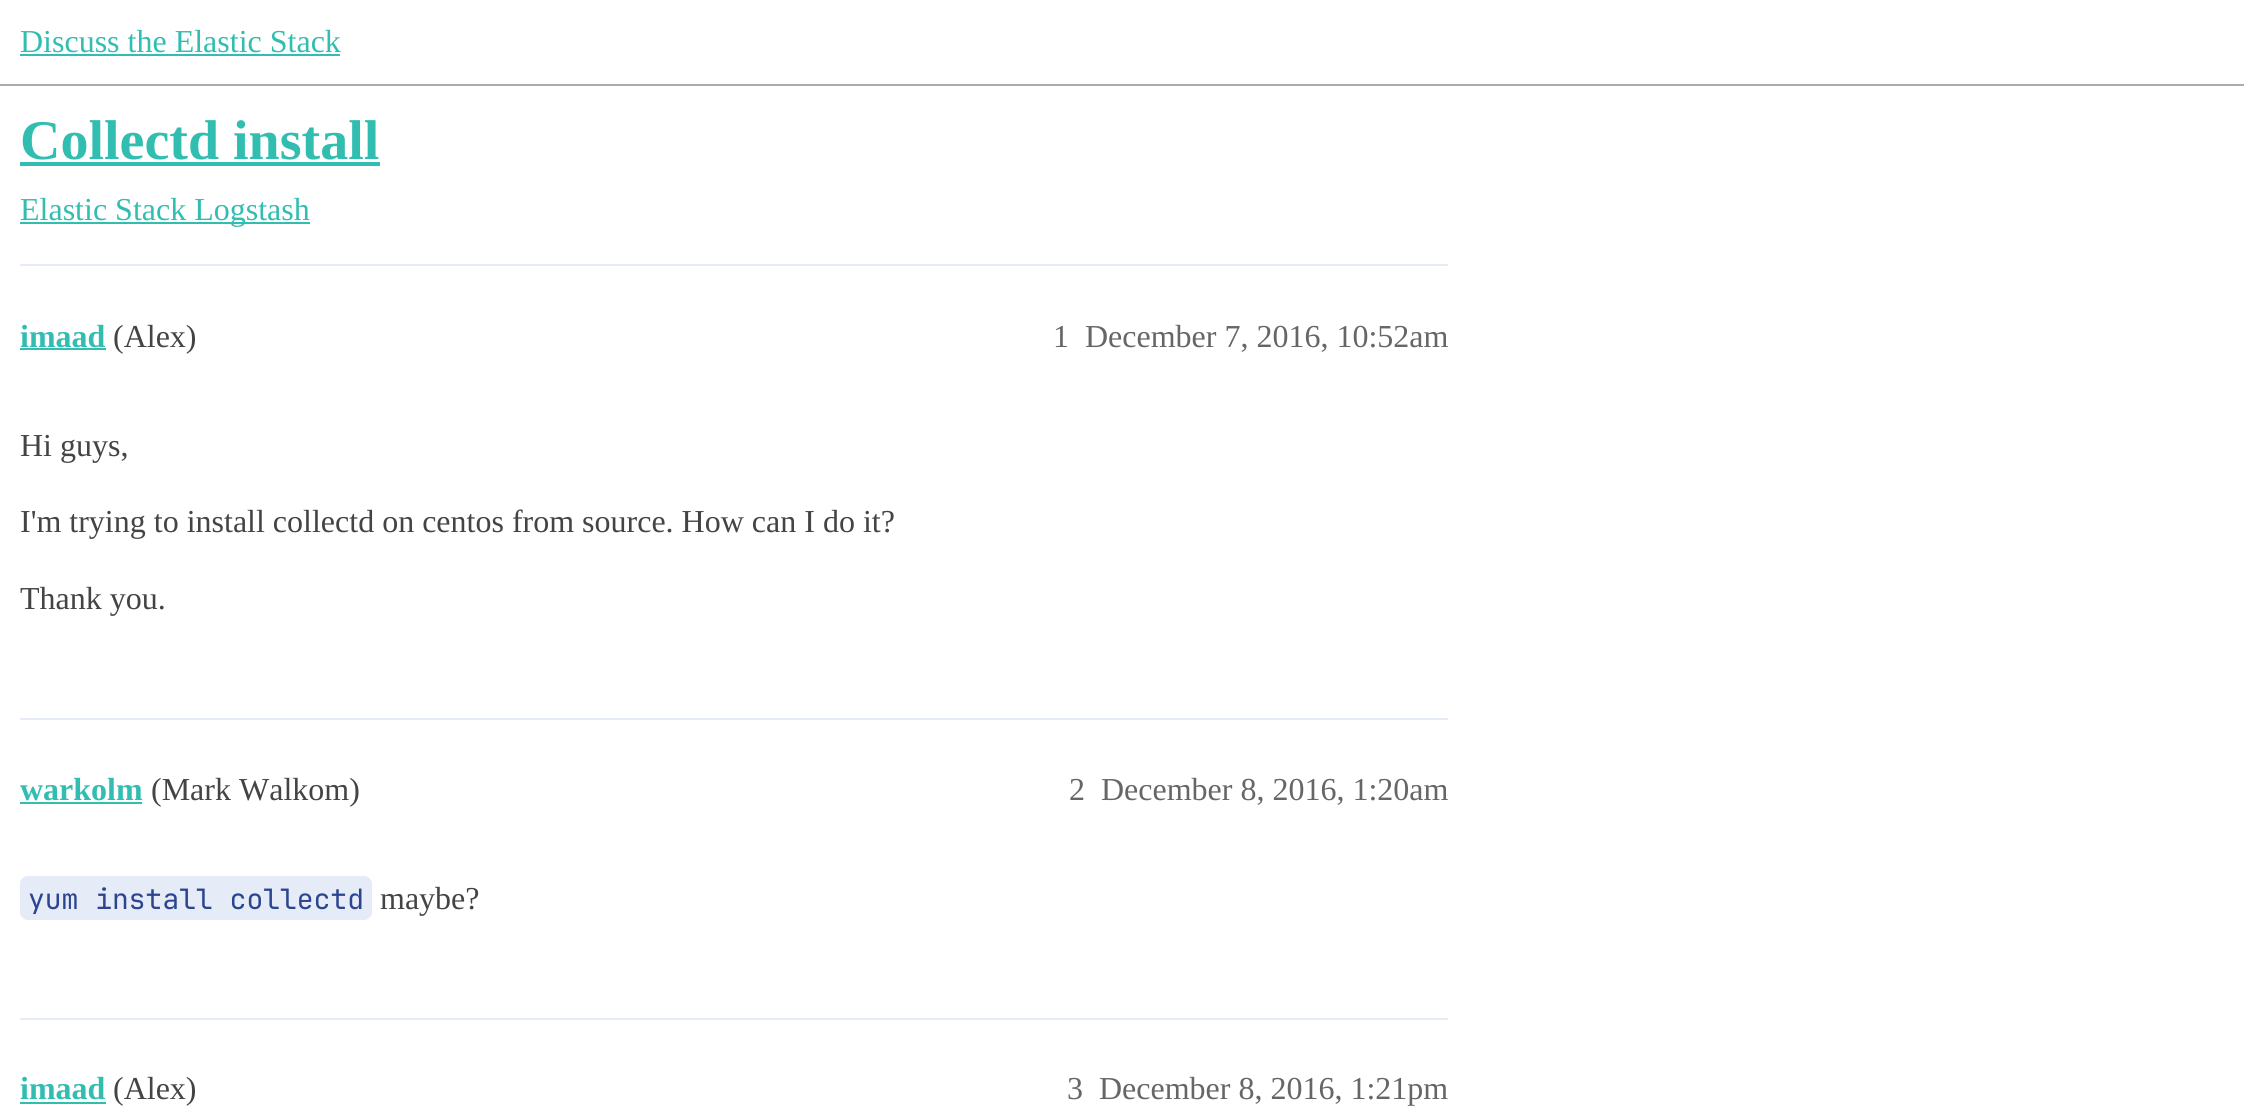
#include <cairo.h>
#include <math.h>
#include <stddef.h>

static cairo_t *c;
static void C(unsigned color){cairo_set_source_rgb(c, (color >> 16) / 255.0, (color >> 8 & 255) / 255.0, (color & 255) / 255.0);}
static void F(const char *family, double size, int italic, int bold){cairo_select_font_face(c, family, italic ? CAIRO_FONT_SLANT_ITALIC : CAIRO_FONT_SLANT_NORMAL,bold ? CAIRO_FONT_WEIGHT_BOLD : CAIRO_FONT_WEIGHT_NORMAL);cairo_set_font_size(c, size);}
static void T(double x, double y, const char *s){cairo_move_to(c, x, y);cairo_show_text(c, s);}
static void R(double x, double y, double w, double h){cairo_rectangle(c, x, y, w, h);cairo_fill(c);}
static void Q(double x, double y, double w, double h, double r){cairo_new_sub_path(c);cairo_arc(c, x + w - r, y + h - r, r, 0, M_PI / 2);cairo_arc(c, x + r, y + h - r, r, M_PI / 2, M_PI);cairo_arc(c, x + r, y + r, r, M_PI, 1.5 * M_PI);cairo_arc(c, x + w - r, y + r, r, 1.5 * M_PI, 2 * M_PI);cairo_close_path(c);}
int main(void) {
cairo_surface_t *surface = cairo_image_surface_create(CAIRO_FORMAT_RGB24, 2244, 1113);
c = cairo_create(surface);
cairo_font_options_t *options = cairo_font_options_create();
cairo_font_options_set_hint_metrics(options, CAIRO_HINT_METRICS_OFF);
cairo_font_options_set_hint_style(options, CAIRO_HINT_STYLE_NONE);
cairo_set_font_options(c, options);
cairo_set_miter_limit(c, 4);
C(0xffffff);
cairo_paint(c);
C(0xababab);
R(0,84,2244,2);
F("Liberation Serif",32,0,0);
C(0x31beb1);
T(20,52,"Discuss the Elastic Stack");
R(20,54,320,2);
F("Liberation Serif",56,0,1);
T(20,159,"Collectd install");
R(20,162,360,4);
R(20,222,290,2);
F("Liberation Serif",32,0,0);
T(20,220,"Elastic Stack Logstash");
C(0xe6ebf8);
R(20,264,1428,2);
F("Liberation Serif",32,0,1);
C(0x31beb1);
T(20,347,"imaad");
R(20,348,86,2);
F("Liberation Serif",32,0,0);
C(0x444444);
T(113,347,"(Alex)");
C(0x666666);
T(1053,347,"1");
T(1085,347,"December 7, 2016, 10:52am");
C(0x444444);
T(20,456,"Hi guys,");
T(20,532,"I'm trying to install collectd on centos from source. How can I do it?");
T(20,609,"Thank you.");
C(0xe6ebf8);
R(20,718,1428,2);
F("Liberation Serif",32,0,1);
C(0x31beb1);
T(20,800,"warkolm");
R(20,802,122,2);
F("Liberation Serif",32,0,0);
C(0x444444);
T(151,800,"(Mark Walkom)");
C(0x666666);
T(1069,800,"2");
T(1101,800,"December 8, 2016, 1:20am");
C(0xe6ebf8);
Q(20,876,352,44,8);
cairo_fill(c);
F("JetBrains Mono",28,0,0);
C(0x2b4590);
T(28,909,"yum install collectd");
F("Liberation Serif",32,0,0);
C(0x444444);
T(380,909,"maybe?");
C(0xe6ebf8);
R(20,1018,1428,2);
F("Liberation Serif",32,0,1);
C(0x31beb1);
T(20,1099,"imaad");
R(20,1102,86,2);
F("Liberation Serif",32,0,0);
C(0x444444);
T(113,1099,"(Alex)");
C(0x666666);
T(1067,1099,"3");
T(1099,1099,"December 8, 2016, 1:21pm");
cairo_surface_write_to_png(surface, "o.png");
cairo_font_options_destroy(options);
cairo_destroy(c);
cairo_surface_destroy(surface);
return 0;
}
